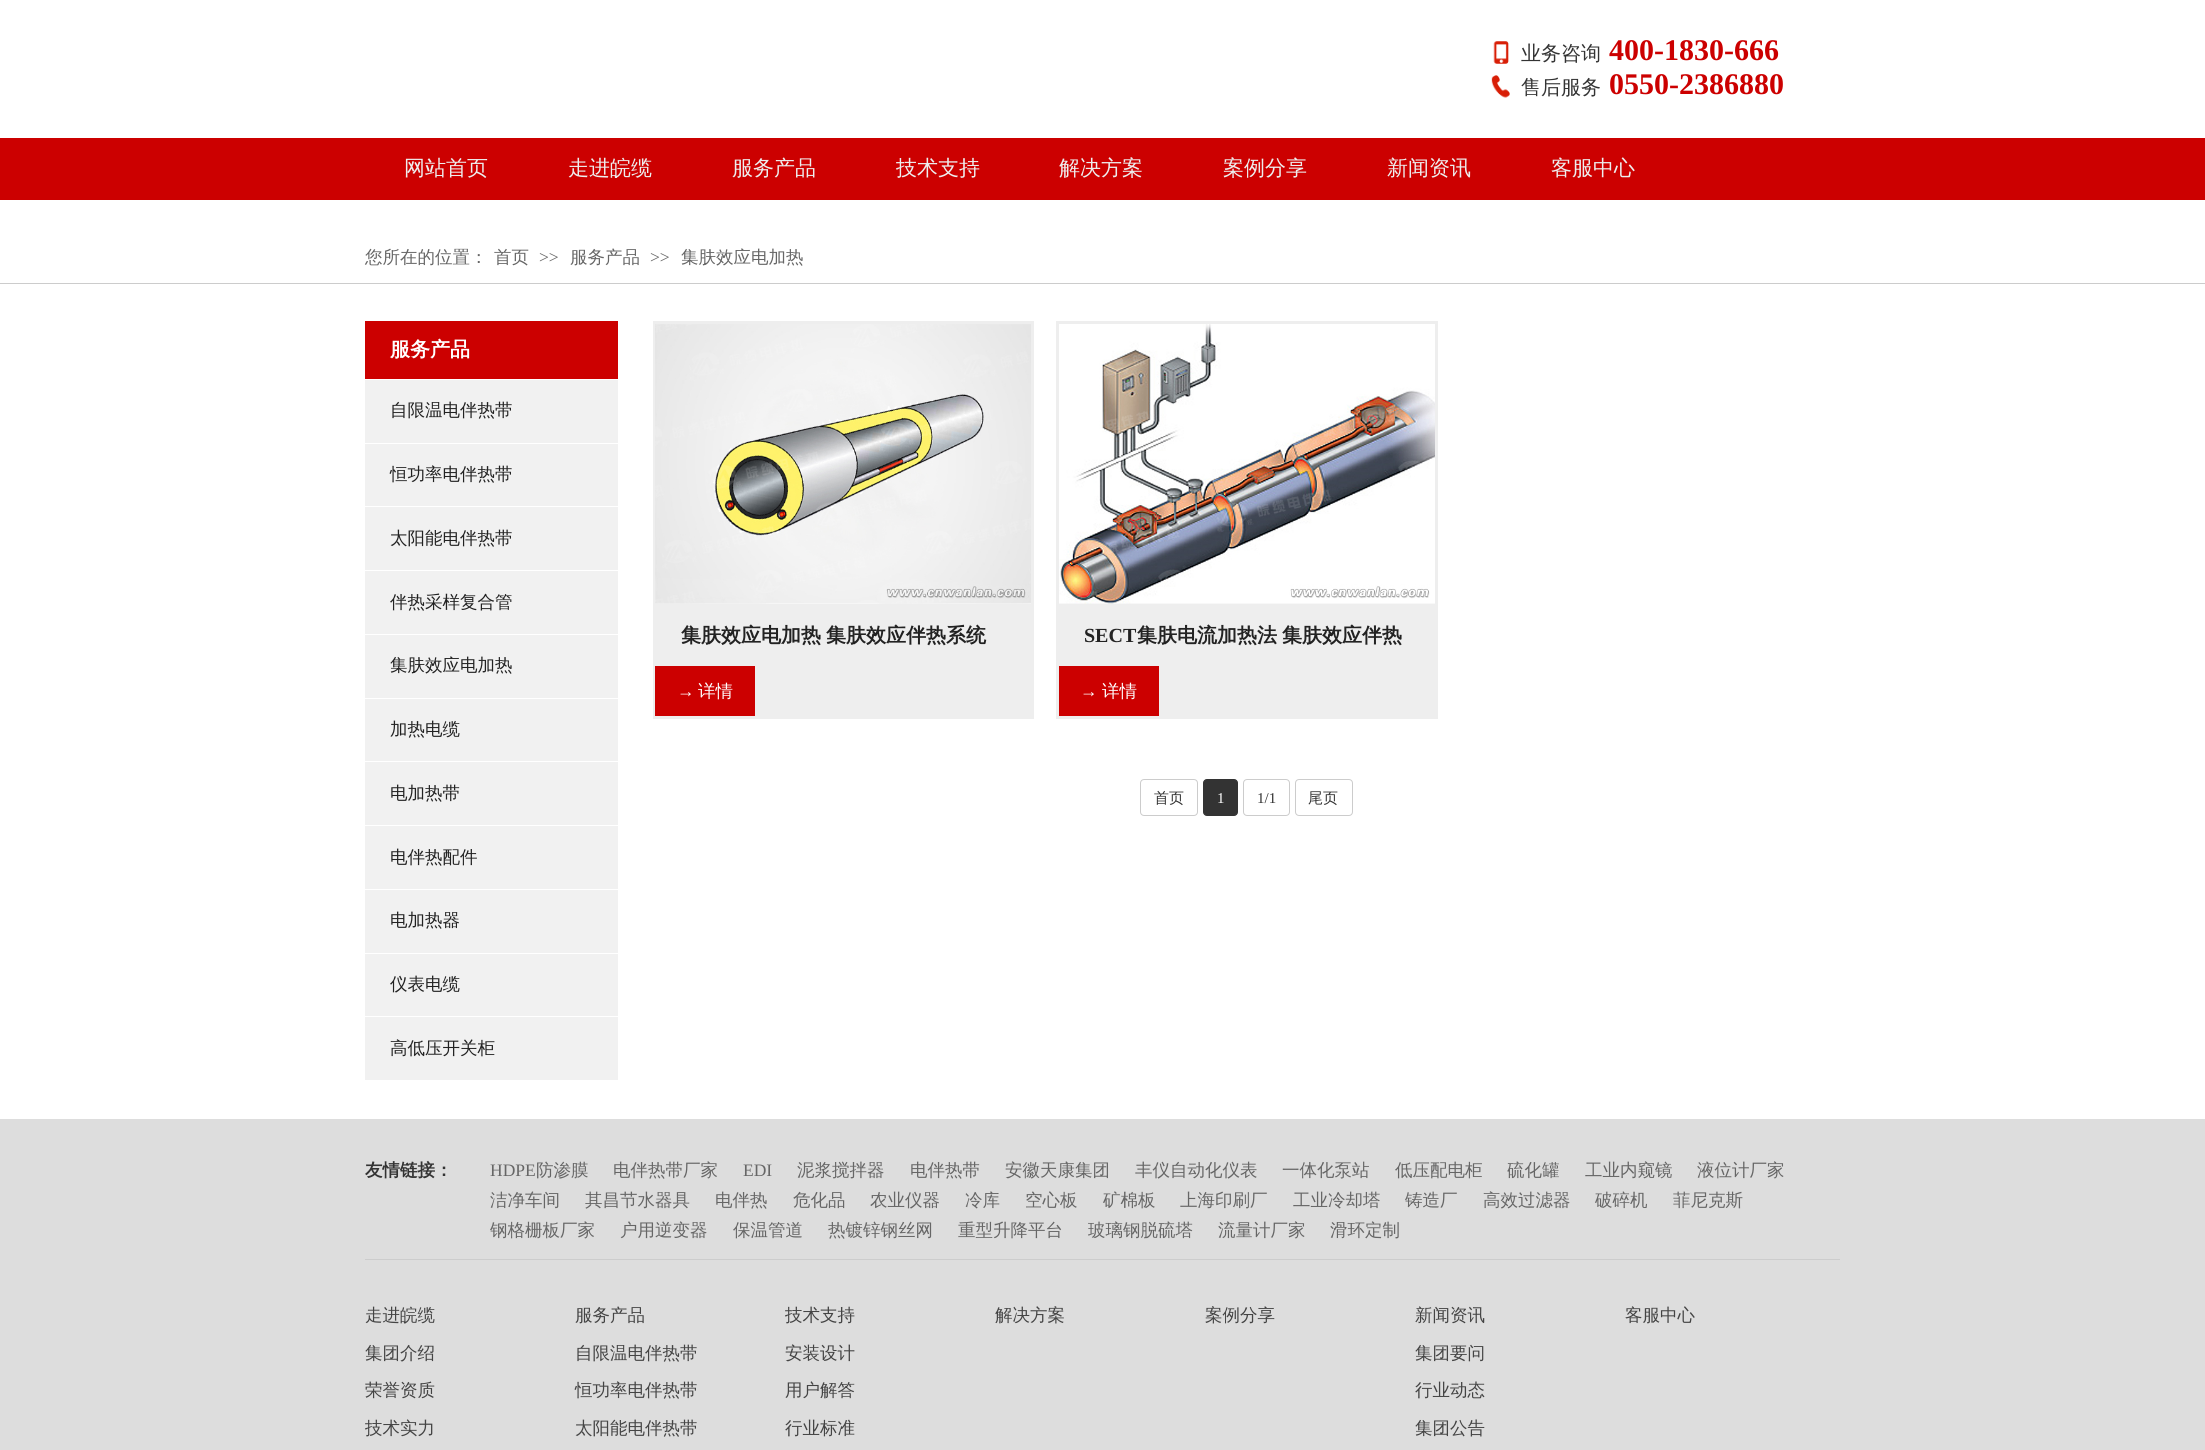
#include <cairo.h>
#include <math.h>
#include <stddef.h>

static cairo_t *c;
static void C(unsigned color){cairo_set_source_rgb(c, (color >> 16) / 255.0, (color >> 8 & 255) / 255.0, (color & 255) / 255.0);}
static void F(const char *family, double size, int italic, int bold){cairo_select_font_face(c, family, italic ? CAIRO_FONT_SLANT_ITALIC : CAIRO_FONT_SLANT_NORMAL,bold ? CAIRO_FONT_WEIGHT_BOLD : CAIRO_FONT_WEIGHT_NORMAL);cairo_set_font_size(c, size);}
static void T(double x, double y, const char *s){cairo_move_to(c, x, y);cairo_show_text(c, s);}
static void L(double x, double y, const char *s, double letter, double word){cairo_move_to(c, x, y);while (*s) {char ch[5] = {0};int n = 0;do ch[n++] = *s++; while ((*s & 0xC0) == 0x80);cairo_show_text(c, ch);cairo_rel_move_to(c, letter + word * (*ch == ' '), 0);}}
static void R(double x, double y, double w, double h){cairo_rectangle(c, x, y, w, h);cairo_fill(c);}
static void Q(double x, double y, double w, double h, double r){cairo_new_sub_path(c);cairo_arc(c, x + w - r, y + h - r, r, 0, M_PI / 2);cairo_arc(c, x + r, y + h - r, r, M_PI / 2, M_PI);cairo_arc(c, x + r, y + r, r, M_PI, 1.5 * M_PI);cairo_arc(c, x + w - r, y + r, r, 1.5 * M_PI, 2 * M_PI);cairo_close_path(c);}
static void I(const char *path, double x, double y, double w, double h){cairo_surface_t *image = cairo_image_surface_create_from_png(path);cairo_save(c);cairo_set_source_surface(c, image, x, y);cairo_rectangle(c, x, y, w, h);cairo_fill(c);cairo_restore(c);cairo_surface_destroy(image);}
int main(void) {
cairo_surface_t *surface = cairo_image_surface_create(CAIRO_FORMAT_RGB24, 2205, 1450);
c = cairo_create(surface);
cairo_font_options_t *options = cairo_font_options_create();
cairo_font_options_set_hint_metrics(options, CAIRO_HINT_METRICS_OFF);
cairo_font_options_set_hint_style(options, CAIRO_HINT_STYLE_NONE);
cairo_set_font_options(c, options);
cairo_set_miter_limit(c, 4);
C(0xffffff);
cairo_paint(c);
I("1.png",1493,41,16,23);
F("WenQuanYi Zen Hei Medium",20,0,0);
C(0x333333);
T(1521,60,"业务咨询");
F("Liberation Serif",30,0,1);
C(0xcc0000);
T(1609,60,"400-1830-666");
I("2.png",1491,75,19,23);
F("WenQuanYi Zen Hei Medium",20,0,0);
C(0x333333);
T(1521,94,"售后服务");
F("Liberation Serif",30,0,1);
C(0xcc0000);
T(1609,94,"0550-2386880");
R(0,138,2205,62);
F("WenQuanYi Zen Hei Medium",21,0,0);
C(0xeeeeee);
T(404,175,"网站首页");
T(568,175,"走进皖缆");
T(732,175,"服务产品");
T(896,175,"技术支持");
T(1059,175,"解决方案");
T(1223,175,"案例分享");
T(1387,175,"新闻资讯");
T(1551,175,"客服中心");
C(0xcccccc);
R(0,283,2205,1);
F("WenQuanYi Zen Hei Medium",17.5,0,0);
C(0x666666);
T(365,263,"您所在的位置：");
T(494,263,"首页");
F("Liberation Serif",17.5,0,0);
T(539,263,">>");
F("WenQuanYi Zen Hei Medium",17.5,0,0);
T(570,263,"服务产品");
F("Liberation Serif",17.5,0,0);
T(650,263,">>");
F("WenQuanYi Zen Hei Medium",17.5,0,0);
T(681,263,"集肤效应电加热");
C(0xcc0000);
R(365,321,253,58);
F("WenQuanYi Zen Hei",20,0,1);
C(0xffffff);
T(390,356,"服务产品");
C(0xf1f1f1);
R(365,380,253,63);
F("WenQuanYi Zen Hei Medium",17.5,0,0);
C(0x222222);
T(390,416,"自限温电伴热带");
C(0xf1f1f1);
R(365,444,253,126);
C(0xffffff);
R(365,506,253,1);
C(0x222222);
T(390,480,"恒功率电伴热带");
T(390,544,"太阳能电伴热带");
C(0xf1f1f1);
R(365,571,253,63);
C(0x222222);
T(390,608,"伴热采样复合管");
C(0xf1f1f1);
R(365,635,253,63);
C(0x222222);
T(390,671,"集肤效应电加热");
C(0xf1f1f1);
R(365,699,253,126);
C(0xffffff);
R(365,761,253,1);
C(0x222222);
T(390,735,"加热电缆");
T(390,799,"电加热带");
C(0xf1f1f1);
R(365,826,253,63);
C(0x222222);
T(390,863,"电伴热配件");
C(0xf1f1f1);
R(365,890,253,63);
C(0x222222);
T(390,926,"电加热器");
C(0xf1f1f1);
R(365,954,253,126);
C(0xffffff);
R(365,1016,253,1);
C(0x222222);
T(390,990,"仪表电缆");
T(390,1054,"高低压开关柜");
C(0xeeeeee);
R(653,321,381,398);
I("3.png",655,324,376,280);
F("WenQuanYi Zen Hei",20,0,1);
C(0x222222);
L(681,642,"集肤效应电加热 集肤效应伴热系统",0,-1);
C(0xcc0000);
R(655,666,100,50);
F("Liberation Serif",17.5,0,0);
C(0xffffff);
T(677,697,"→");
F("WenQuanYi Zen Hei Medium",17.5,0,0);
T(698,697,"详情");
C(0xeeeeee);
R(1056,321,382,398);
I("4.png",1059,324,376,280);
F("Liberation Serif",20,0,1);
C(0x222222);
T(1084,642,"SECT");
F("WenQuanYi Zen Hei",20,0,1);
L(1137,642,"集肤电流加热法 集肤效应伴热",0,-1);
C(0xcc0000);
R(1059,666,100,50);
F("Liberation Serif",17.5,0,0);
C(0xffffff);
T(1080,697,"→");
F("WenQuanYi Zen Hei Medium",17.5,0,0);
T(1102,697,"详情");
Q(1140.5,779.5,57,36,3.5);
C(0xcccccc);
cairo_set_line_width(c,1);
cairo_stroke(c);
F("WenQuanYi Zen Hei Medium",15,0,0);
C(0x333333);
T(1154,803,"首页");
Q(1203.5,779.5,34,36,3.5);
cairo_fill_preserve(c);
cairo_stroke(c);
F("Liberation Serif",15,0,0);
C(0xffffff);
T(1217,803,"1");
Q(1243.5,779.5,46,36,3.5);
C(0xcccccc);
cairo_stroke(c);
C(0x333333);
T(1257,803,"1/1");
Q(1295.5,779.5,57,36,3.5);
C(0xcccccc);
cairo_stroke(c);
F("WenQuanYi Zen Hei Medium",15,0,0);
C(0x333333);
T(1308,803,"尾页");
C(0xdddddd);
R(0,1119,2205,331);
C(0xcccccc);
R(365,1259,1475,1);
F("WenQuanYi Zen Hei",17.5,0,1);
C(0x333333);
T(365,1176,"友情链接：");
F("Liberation Serif",17.5,0,0);
C(0x666666);
T(490,1176,"HDPE");
F("WenQuanYi Zen Hei Medium",17.5,0,0);
T(536,1176,"防渗膜");
T(613,1176,"电伴热带厂家");
F("Liberation Serif",17.5,0,0);
T(743,1176,"EDI");
F("WenQuanYi Zen Hei Medium",17.5,0,0);
T(797,1176,"泥浆搅拌器");
T(910,1176,"电伴热带");
T(1005,1176,"安徽天康集团");
T(1135,1176,"丰仪自动化仪表");
T(1282,1176,"一体化泵站");
T(1395,1176,"低压配电柜");
T(1507,1176,"硫化罐");
T(1585,1176,"工业内窥镜");
T(1697,1176,"液位计厂家");
T(490,1206,"洁净车间");
T(585,1206,"其昌节水器具");
T(715,1206,"电伴热");
T(793,1206,"危化品");
T(870,1206,"农业仪器");
T(965,1206,"冷库");
T(1025,1206,"空心板");
T(1103,1206,"矿棉板");
T(1180,1206,"上海印刷厂");
T(1293,1206,"工业冷却塔");
T(1405,1206,"铸造厂");
T(1483,1206,"高效过滤器");
T(1595,1206,"破碎机");
T(1673,1206,"菲尼克斯");
T(490,1236,"钢格栅板厂家");
T(620,1236,"户用逆变器");
T(733,1236,"保温管道");
T(828,1236,"热镀锌钢丝网");
T(958,1236,"重型升降平台");
T(1088,1236,"玻璃钢脱硫塔");
T(1218,1236,"流量计厂家");
T(1330,1236,"滑环定制");
C(0x444444);
T(365,1321,"走进皖缆");
T(365,1359,"集团介绍");
T(365,1396,"荣誉资质");
T(365,1434,"技术实力");
T(575,1321,"服务产品");
T(575,1359,"自限温电伴热带");
T(575,1396,"恒功率电伴热带");
T(575,1434,"太阳能电伴热带");
T(785,1321,"技术支持");
T(785,1359,"安装设计");
T(785,1396,"用户解答");
T(785,1434,"行业标准");
T(995,1321,"解决方案");
T(1205,1321,"案例分享");
T(1415,1321,"新闻资讯");
T(1415,1359,"集团要问");
T(1415,1396,"行业动态");
T(1415,1434,"集团公告");
T(1625,1321,"客服中心");
cairo_surface_write_to_png(surface, "o.png");
cairo_font_options_destroy(options);
cairo_destroy(c);
cairo_surface_destroy(surface);
return 0;
}
